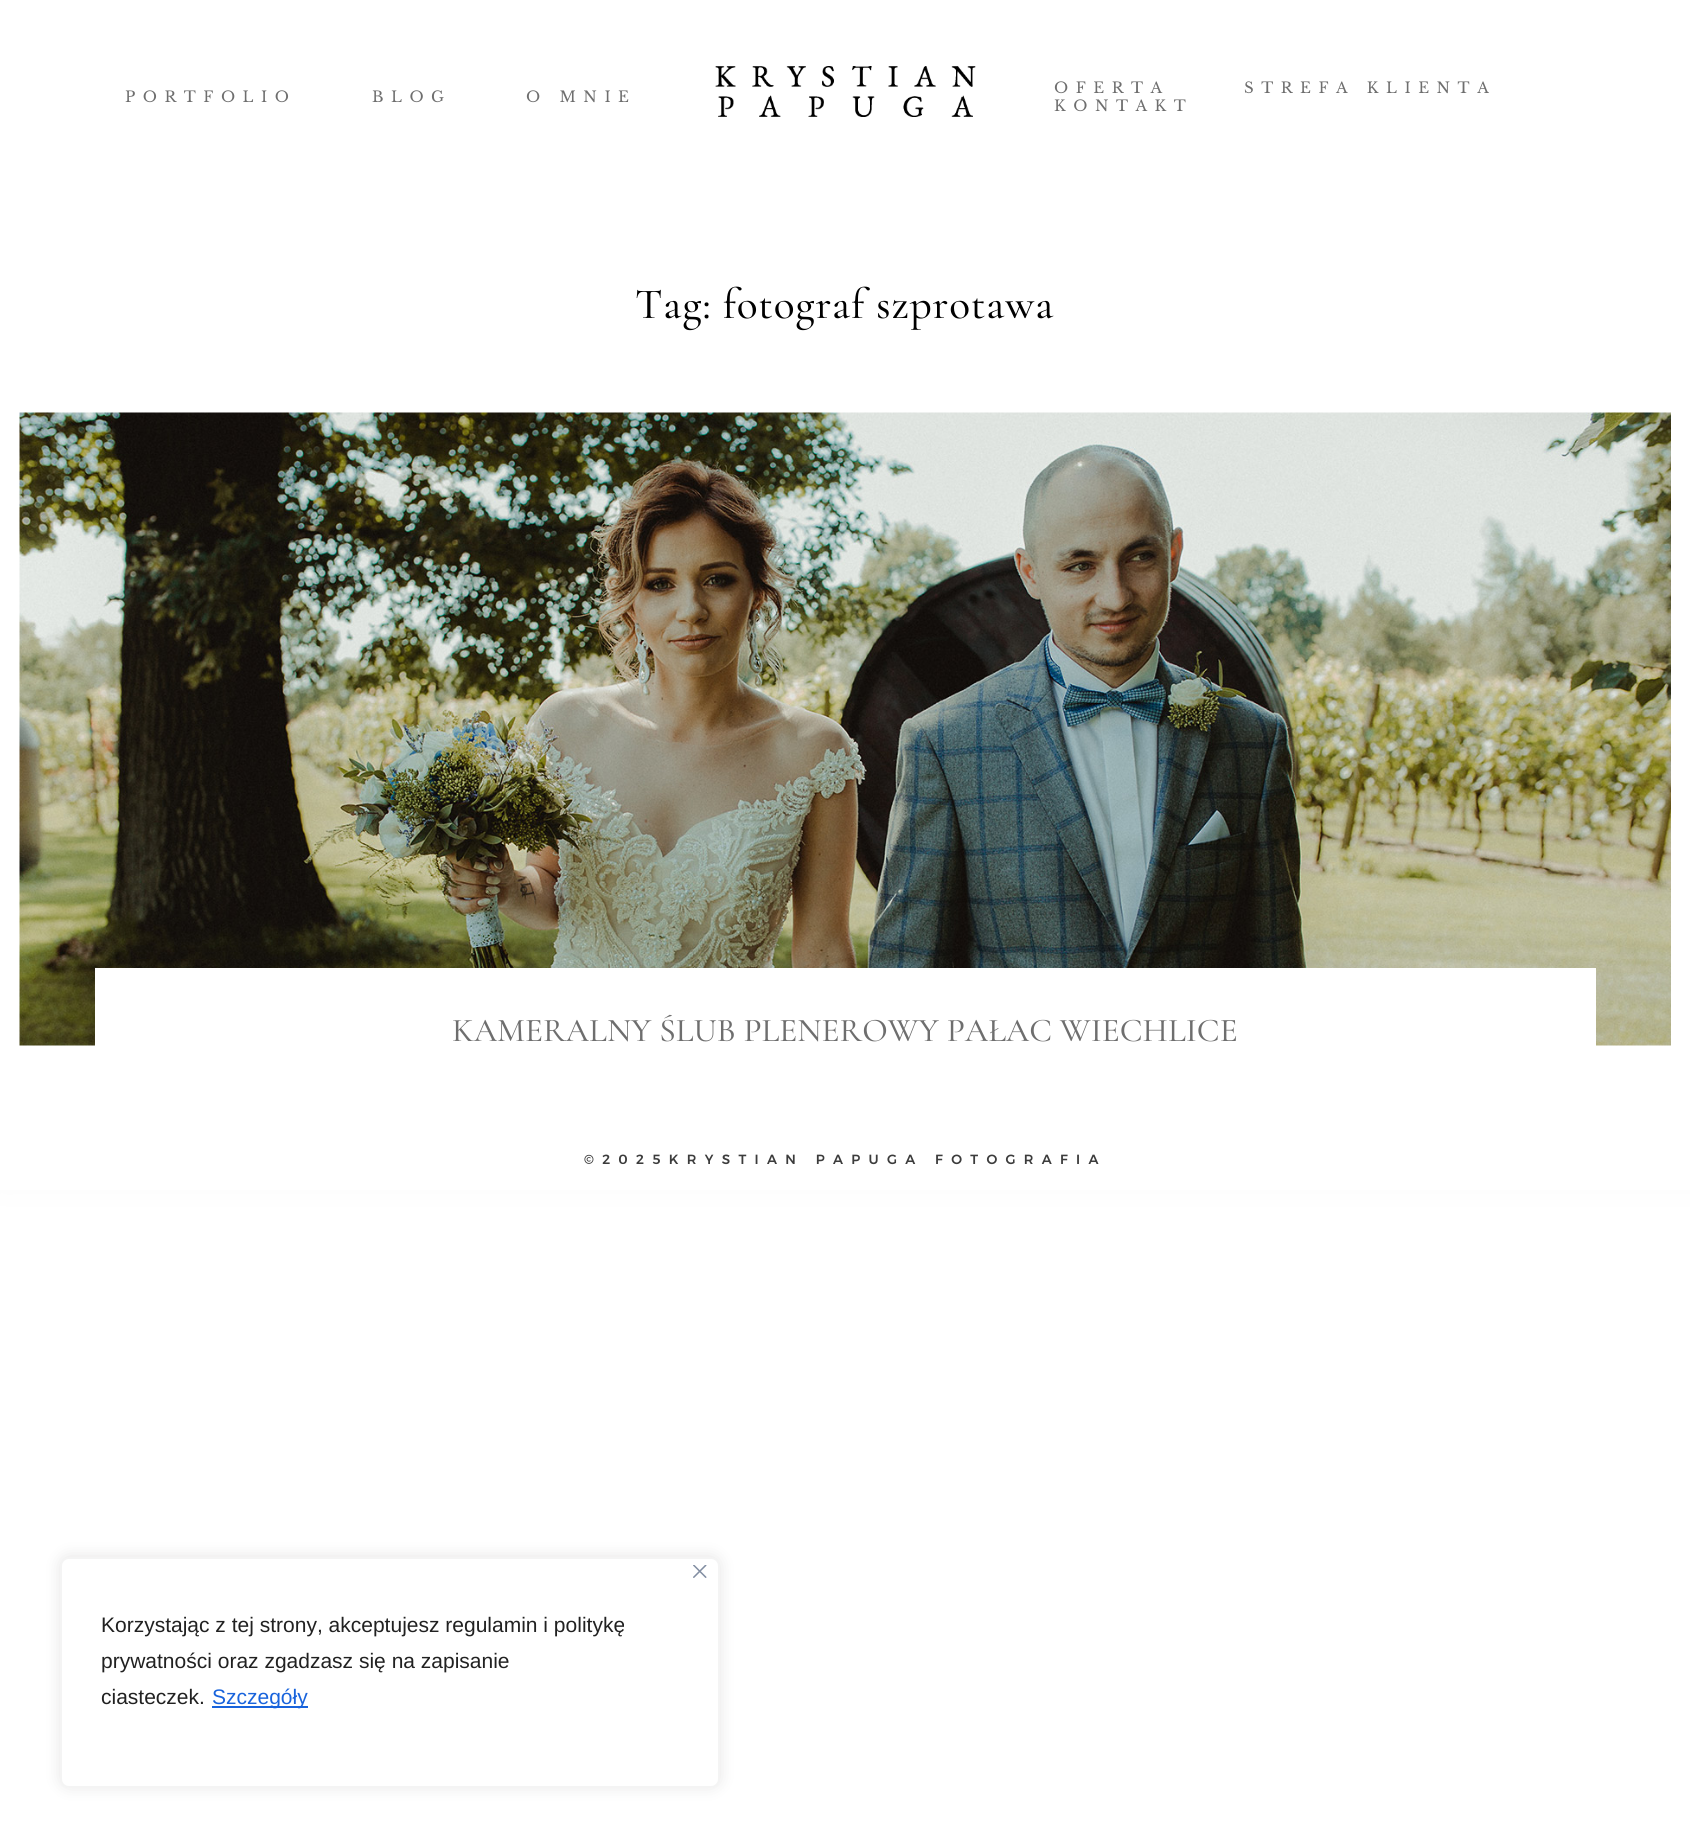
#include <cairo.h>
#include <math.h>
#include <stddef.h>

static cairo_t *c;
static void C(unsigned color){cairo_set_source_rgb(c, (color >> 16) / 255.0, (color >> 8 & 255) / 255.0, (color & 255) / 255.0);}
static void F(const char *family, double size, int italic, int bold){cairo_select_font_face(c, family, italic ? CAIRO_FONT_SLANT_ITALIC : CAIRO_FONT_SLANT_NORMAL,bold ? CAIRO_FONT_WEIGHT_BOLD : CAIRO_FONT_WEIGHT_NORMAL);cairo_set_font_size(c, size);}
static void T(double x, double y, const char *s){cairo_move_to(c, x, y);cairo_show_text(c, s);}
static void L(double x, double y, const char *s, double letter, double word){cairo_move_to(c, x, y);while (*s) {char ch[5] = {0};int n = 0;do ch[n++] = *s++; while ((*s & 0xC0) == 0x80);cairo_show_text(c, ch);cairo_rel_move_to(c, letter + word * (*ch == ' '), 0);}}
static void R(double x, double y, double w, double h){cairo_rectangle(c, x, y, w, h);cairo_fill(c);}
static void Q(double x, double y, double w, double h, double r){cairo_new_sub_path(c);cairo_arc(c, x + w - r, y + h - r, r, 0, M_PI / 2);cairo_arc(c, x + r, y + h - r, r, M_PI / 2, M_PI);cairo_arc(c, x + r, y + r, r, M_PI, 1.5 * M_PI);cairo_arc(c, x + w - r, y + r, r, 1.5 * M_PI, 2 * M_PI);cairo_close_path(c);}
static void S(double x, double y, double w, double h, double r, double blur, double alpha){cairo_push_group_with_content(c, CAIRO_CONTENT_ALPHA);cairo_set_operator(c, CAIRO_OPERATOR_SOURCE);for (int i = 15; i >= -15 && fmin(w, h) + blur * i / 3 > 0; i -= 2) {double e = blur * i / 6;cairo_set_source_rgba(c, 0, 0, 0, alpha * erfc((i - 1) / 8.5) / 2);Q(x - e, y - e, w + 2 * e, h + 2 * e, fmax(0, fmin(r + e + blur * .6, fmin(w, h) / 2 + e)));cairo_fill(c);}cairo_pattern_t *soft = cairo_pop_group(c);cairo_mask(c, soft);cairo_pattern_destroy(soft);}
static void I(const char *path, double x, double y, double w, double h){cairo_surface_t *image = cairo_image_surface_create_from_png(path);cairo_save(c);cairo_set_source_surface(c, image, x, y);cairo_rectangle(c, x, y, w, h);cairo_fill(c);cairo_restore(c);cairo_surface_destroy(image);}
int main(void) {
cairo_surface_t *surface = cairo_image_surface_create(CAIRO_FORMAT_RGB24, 1690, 1848);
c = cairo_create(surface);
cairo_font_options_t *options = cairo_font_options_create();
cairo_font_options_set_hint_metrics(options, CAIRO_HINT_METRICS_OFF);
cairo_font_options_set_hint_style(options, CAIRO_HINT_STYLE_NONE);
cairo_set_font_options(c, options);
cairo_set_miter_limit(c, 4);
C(0xffffff);
cairo_paint(c);
cairo_save(c);
cairo_set_fill_rule(c,CAIRO_FILL_RULE_EVEN_ODD);
cairo_new_path(c);
cairo_move_to(c,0,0);
cairo_line_to(c,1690,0);
cairo_line_to(c,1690,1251);
cairo_line_to(c,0,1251);
cairo_close_path(c);
cairo_move_to(c,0,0);
cairo_line_to(c,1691,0);
cairo_line_to(c,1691,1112);
cairo_line_to(c,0,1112);
cairo_close_path(c);
cairo_clip(c);
C(0x000000);
S(-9,-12,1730,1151,0,37,.12);
cairo_restore(c);
F("Libre Baskerville",15,0,0);
C(0x6e6e6e);
L(125,102,"PORTFOLIO",7.5,0);
L(372,102,"BLOG",7.5,0);
L(526,102,"O MNIE",7.5,0);
I("1.png",715,66,261,51);
L(1054,93,"OFERTA",7.5,0);
L(1244,93,"STREFA KLIENTA",7.5,0);
L(1054,111,"KONTAKT",7.5,0);
F("Cormorant Garamond Medium",43.25,0,0);
C(0x000000);
L(635,318,"Tag: fotograf szprotawa",.8,0);
I("2.png",19,412,1652,634);
C(0xffffff);
R(95,968,1501,144);
F("Cormorant Garamond Medium",33.3,0,0);
C(0x6e6e6e);
T(452,1041,"KAMERALNY ŚLUB PLENEROWY PAŁAC WIECHLICE");
C(0xffffff);
R(0,1112,1690,78);
F("Montserrat Medium",13.35,0,0);
C(0x3c3c3c);
L(584,1164,"©2025KRYSTIAN PAPUGA FOTOGRAFIA",8.3,0);
C(0xacabab);
S(60,1556,660,231,9,7.5,.3);
C(0xffffff);
Q(61,1558,658,229,8);
cairo_fill_preserve(c);
C(0xf4f4f4);
cairo_stroke(c);
I("3.png",693,1565,14,13);
F("Liberation Sans",21,0,0);
C(0x212121);
T(101,1632,"Korzystając z tej strony, akceptujesz regulamin i politykę");
T(101,1668,"prywatności oraz zgadzasz się na zapisanie");
T(101,1704,"ciasteczek.");
C(0x1863dc);
R(212,1706,96,2);
T(212,1704,"Szczegóły");
cairo_surface_write_to_png(surface, "o.png");
cairo_font_options_destroy(options);
cairo_destroy(c);
cairo_surface_destroy(surface);
return 0;
}
